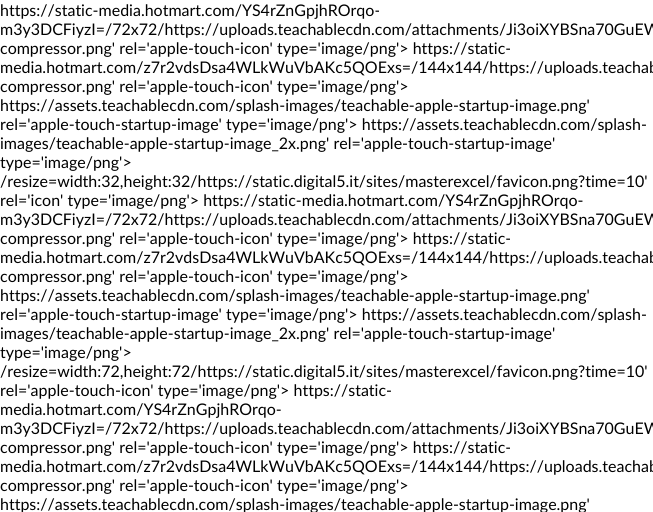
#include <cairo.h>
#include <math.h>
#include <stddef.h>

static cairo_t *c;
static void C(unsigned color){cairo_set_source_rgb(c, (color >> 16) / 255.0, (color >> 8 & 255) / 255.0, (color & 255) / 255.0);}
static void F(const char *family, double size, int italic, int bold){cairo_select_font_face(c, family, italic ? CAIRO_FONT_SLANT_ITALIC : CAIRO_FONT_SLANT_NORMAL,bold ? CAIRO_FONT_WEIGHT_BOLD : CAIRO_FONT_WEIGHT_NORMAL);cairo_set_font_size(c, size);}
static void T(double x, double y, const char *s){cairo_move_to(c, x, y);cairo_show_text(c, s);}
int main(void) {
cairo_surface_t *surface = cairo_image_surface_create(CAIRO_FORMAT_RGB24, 653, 512);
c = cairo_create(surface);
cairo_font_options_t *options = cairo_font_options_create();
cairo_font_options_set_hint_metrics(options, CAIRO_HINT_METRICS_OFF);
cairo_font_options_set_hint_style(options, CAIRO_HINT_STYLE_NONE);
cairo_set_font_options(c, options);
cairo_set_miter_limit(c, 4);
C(0xffffff);
cairo_paint(c);
F("Lato",16,0,0);
C(0x000000);
T(0,16,"https://static-media.hotmart.com/YS4rZnGpjhROrqo-");
T(0,35,"m3y3DCFiyzI=/72x72/https://uploads.teachablecdn.com/attachments/Ji3oiXYBSna70GuEW");
T(0,54,"compressor.png' rel='apple-touch-icon' type='image/png'> https://static-");
T(0,73,"media.hotmart.com/z7r2vdsDsa4WLkWuVbAKc5QOExs=/144x144/https://uploads.teachab");
T(0,92,"compressor.png' rel='apple-touch-icon' type='image/png'>");
T(0,111,"https://assets.teachablecdn.com/splash-images/teachable-apple-startup-image.png'");
T(0,130,"rel='apple-touch-startup-image' type='image/png'> https://assets.teachablecdn.com/splash-");
T(0,149,"images/teachable-apple-startup-image_2x.png' rel='apple-touch-startup-image'");
T(0,168,"type='image/png'>");
T(0,187,"/resize=width:32,height:32/https://static.digital5.it/sites/masterexcel/favicon.png?time=10'");
T(0,206,"rel='icon' type='image/png'> https://static-media.hotmart.com/YS4rZnGpjhROrqo-");
T(0,225,"m3y3DCFiyzI=/72x72/https://uploads.teachablecdn.com/attachments/Ji3oiXYBSna70GuEW");
T(0,244,"compressor.png' rel='apple-touch-icon' type='image/png'> https://static-");
T(0,263,"media.hotmart.com/z7r2vdsDsa4WLkWuVbAKc5QOExs=/144x144/https://uploads.teachab");
T(0,282,"compressor.png' rel='apple-touch-icon' type='image/png'>");
T(0,301,"https://assets.teachablecdn.com/splash-images/teachable-apple-startup-image.png'");
T(0,320,"rel='apple-touch-startup-image' type='image/png'> https://assets.teachablecdn.com/splash-");
T(0,339,"images/teachable-apple-startup-image_2x.png' rel='apple-touch-startup-image'");
T(0,358,"type='image/png'>");
T(0,377,"/resize=width:72,height:72/https://static.digital5.it/sites/masterexcel/favicon.png?time=10'");
T(0,396,"rel='apple-touch-icon' type='image/png'> https://static-");
T(0,415,"media.hotmart.com/YS4rZnGpjhROrqo-");
T(0,434,"m3y3DCFiyzI=/72x72/https://uploads.teachablecdn.com/attachments/Ji3oiXYBSna70GuEW");
T(0,453,"compressor.png' rel='apple-touch-icon' type='image/png'> https://static-");
T(0,472,"media.hotmart.com/z7r2vdsDsa4WLkWuVbAKc5QOExs=/144x144/https://uploads.teachab");
T(0,491,"compressor.png' rel='apple-touch-icon' type='image/png'>");
T(0,510,"https://assets.teachablecdn.com/splash-images/teachable-apple-startup-image.png'");
cairo_surface_write_to_png(surface, "o.png");
cairo_font_options_destroy(options);
cairo_destroy(c);
cairo_surface_destroy(surface);
return 0;
}
